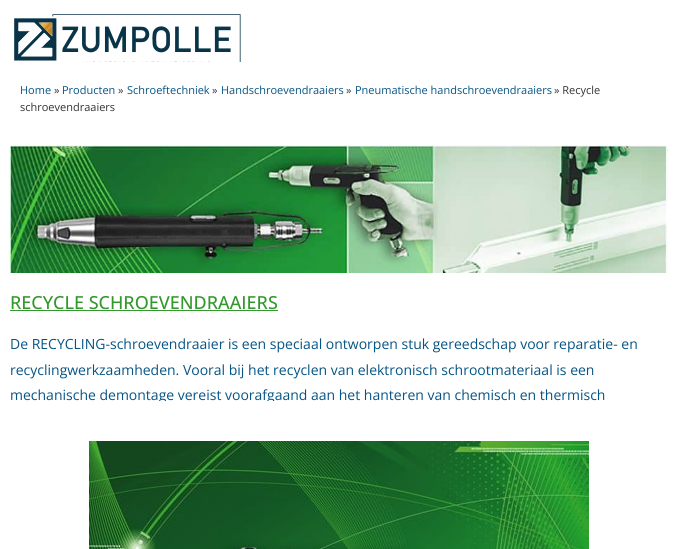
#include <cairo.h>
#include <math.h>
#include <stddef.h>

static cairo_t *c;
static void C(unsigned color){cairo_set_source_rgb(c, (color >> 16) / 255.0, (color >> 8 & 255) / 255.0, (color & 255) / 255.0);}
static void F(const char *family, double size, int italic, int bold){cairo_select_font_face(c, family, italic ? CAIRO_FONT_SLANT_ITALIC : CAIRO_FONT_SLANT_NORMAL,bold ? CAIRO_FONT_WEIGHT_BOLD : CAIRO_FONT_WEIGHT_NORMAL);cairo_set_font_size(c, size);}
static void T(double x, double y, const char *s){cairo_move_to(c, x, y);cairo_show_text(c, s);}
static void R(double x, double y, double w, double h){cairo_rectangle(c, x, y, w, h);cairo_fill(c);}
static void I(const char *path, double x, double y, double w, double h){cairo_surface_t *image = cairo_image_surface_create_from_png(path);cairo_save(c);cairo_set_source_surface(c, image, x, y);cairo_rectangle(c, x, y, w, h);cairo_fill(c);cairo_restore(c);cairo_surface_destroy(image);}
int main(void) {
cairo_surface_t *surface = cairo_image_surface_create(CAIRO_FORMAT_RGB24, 678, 549);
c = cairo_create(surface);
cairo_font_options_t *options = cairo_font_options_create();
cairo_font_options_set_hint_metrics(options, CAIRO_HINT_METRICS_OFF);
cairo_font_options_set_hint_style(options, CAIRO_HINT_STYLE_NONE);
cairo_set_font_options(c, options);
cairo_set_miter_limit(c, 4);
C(0xffffff);
cairo_paint(c);
I("1.png",14,14,227,48);
F("Open Sans",11,0,0);
C(0x065485);
T(20,94,"Home");
C(0x333333);
T(54,94,"»");
C(0x065485);
T(62,94,"Producten");
C(0x333333);
T(118,94,"»");
C(0x065485);
T(127,94,"Schroeftechniek");
C(0x333333);
T(212,94,"»");
C(0x065485);
T(221,94,"Handschroevendraaiers");
C(0x333333);
T(346,94,"»");
C(0x065485);
T(355,94,"Pneumatische handschroevendraaiers");
C(0x333333);
T(554,94,"» Recycle");
T(20,111,"schroevendraaiers");
I("2.png",10,145,658,128);
F("Open Sans Medium",18,0,0);
C(0x33992c);
T(10,309,"RECYCLE SCHROEVENDRAAIERS");
R(10,310,268,1);
F("Open Sans",14,0,0);
C(0x065485);
T(10,349,"De RECYCLING-schroevendraaier is een speciaal ontworpen stuk gereedschap voor reparatie- en");
T(10,375,"recyclingwerkzaamheden. Vooral bij het recyclen van elektronisch schrootmateriaal is een");
cairo_save(c);
cairo_rectangle(c,10,331,658,70);
cairo_clip(c);
T(10,400,"mechanische demontage vereist voorafgaand aan het hanteren van chemisch en thermisch");
cairo_restore(c);
I("3.png",89,441,500,108);
cairo_surface_write_to_png(surface, "o.png");
cairo_font_options_destroy(options);
cairo_destroy(c);
cairo_surface_destroy(surface);
return 0;
}
